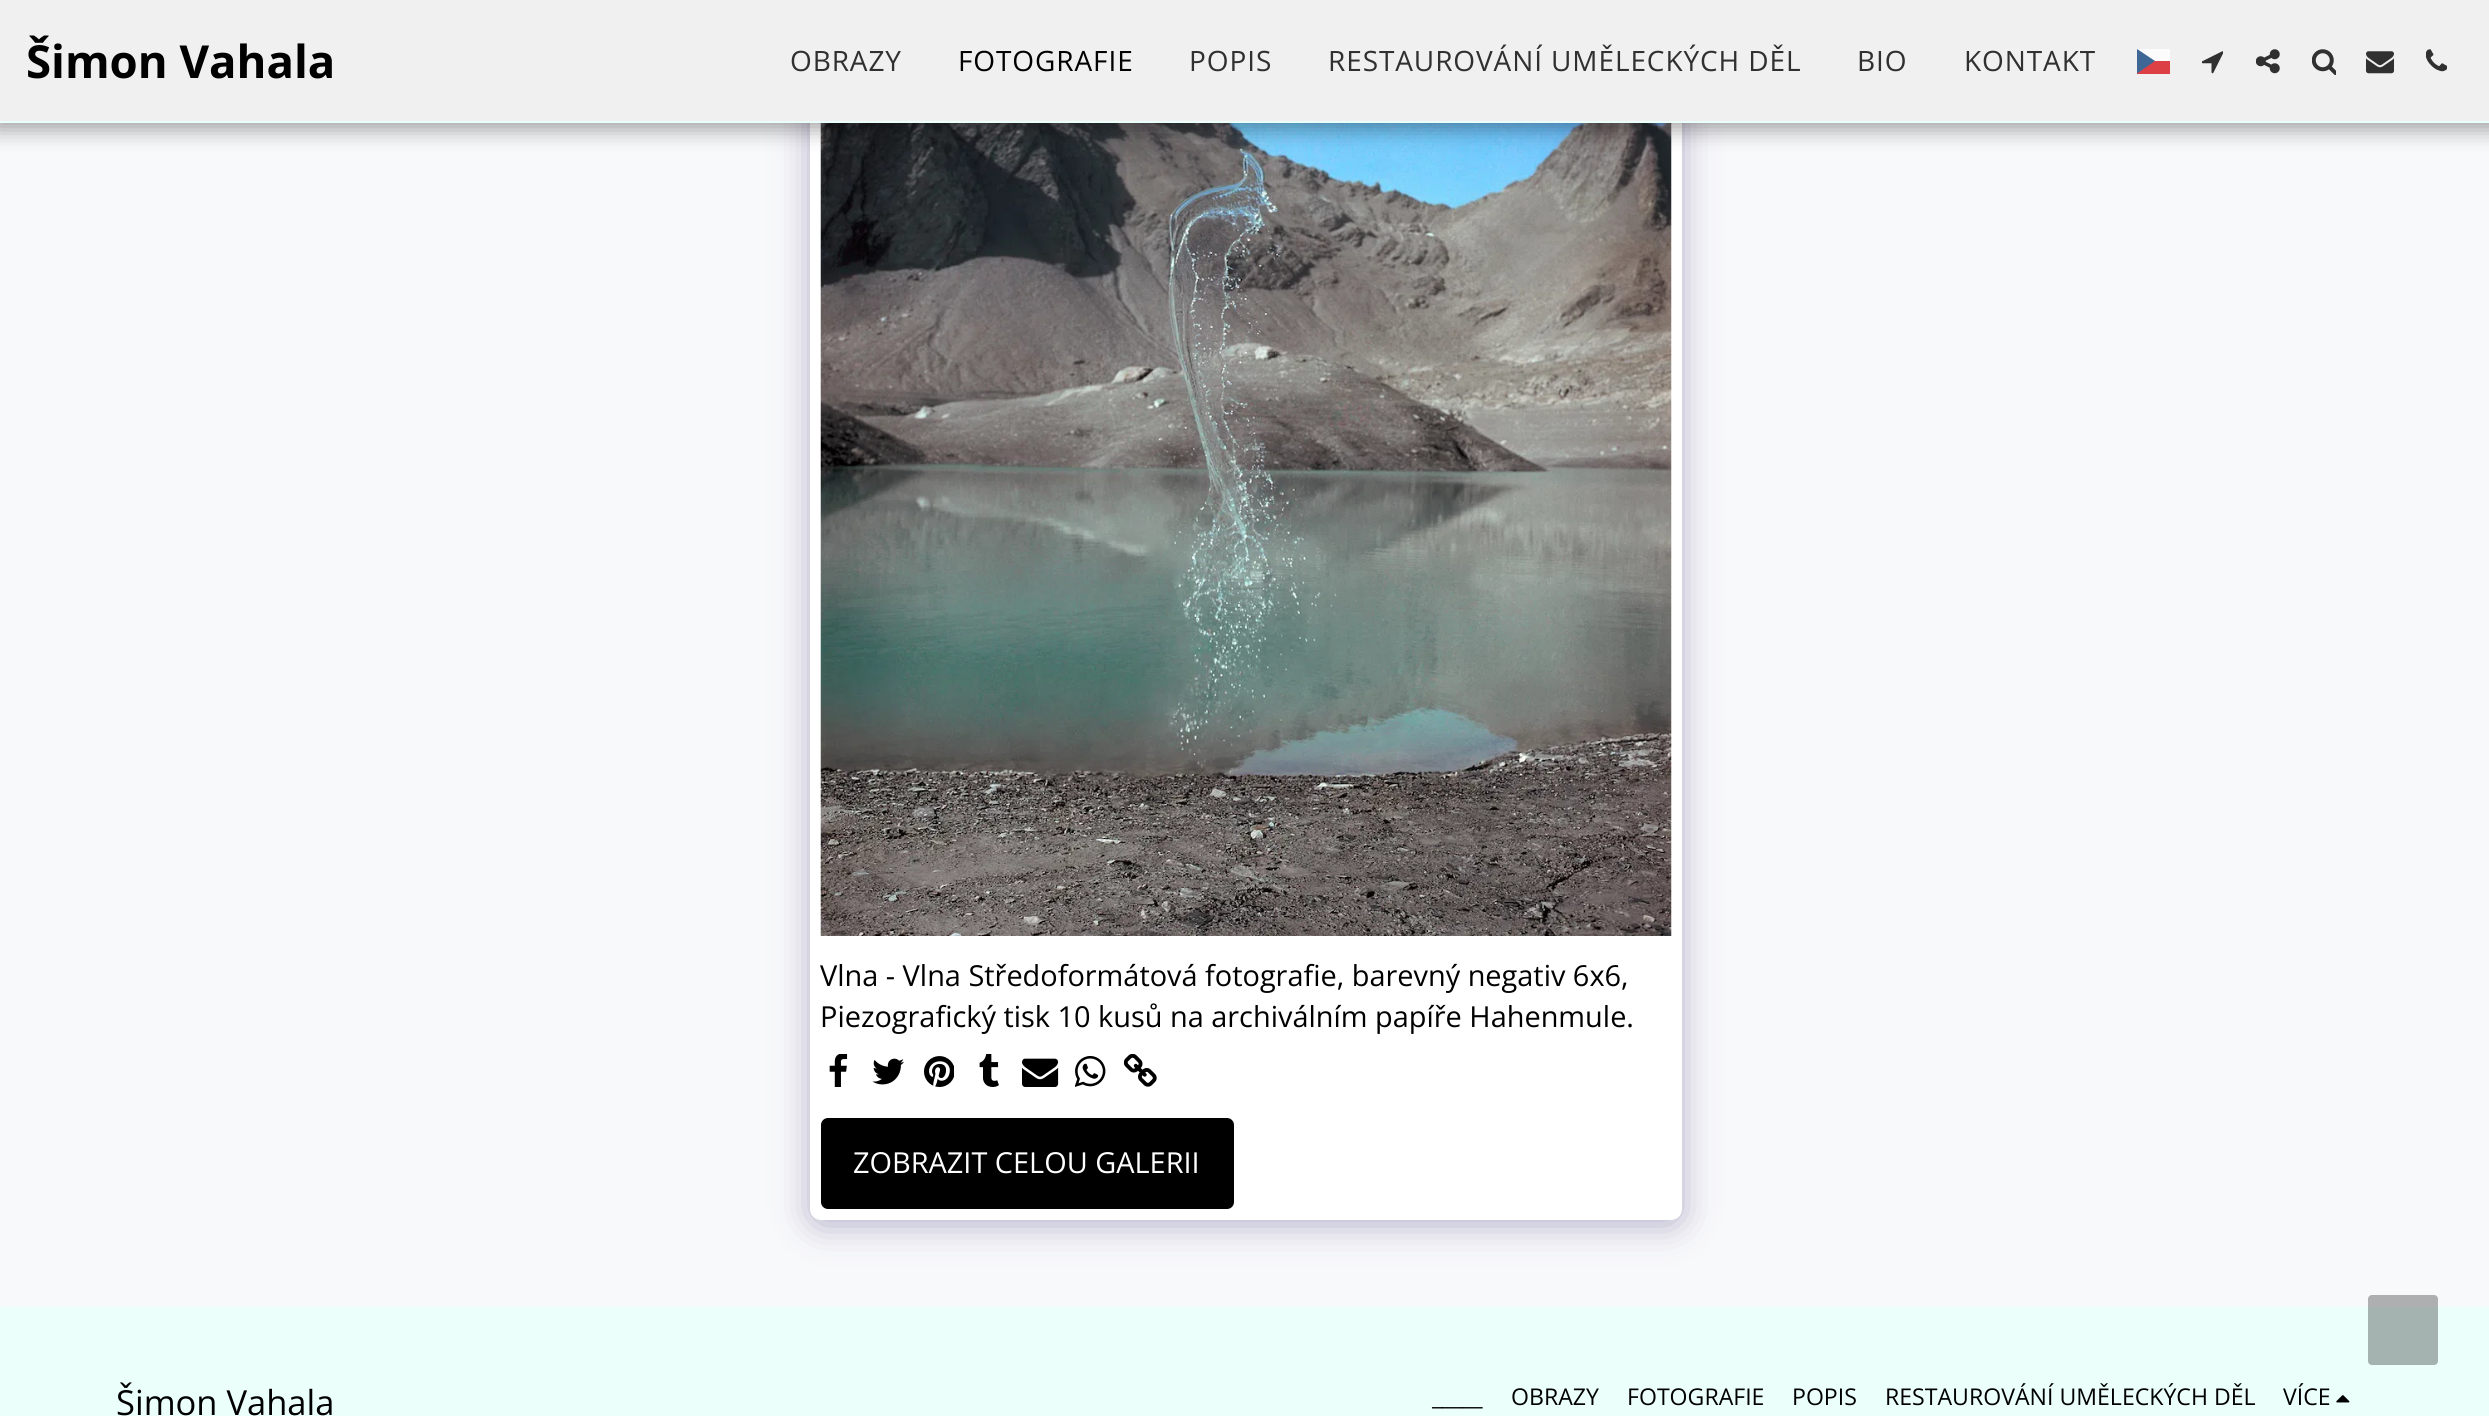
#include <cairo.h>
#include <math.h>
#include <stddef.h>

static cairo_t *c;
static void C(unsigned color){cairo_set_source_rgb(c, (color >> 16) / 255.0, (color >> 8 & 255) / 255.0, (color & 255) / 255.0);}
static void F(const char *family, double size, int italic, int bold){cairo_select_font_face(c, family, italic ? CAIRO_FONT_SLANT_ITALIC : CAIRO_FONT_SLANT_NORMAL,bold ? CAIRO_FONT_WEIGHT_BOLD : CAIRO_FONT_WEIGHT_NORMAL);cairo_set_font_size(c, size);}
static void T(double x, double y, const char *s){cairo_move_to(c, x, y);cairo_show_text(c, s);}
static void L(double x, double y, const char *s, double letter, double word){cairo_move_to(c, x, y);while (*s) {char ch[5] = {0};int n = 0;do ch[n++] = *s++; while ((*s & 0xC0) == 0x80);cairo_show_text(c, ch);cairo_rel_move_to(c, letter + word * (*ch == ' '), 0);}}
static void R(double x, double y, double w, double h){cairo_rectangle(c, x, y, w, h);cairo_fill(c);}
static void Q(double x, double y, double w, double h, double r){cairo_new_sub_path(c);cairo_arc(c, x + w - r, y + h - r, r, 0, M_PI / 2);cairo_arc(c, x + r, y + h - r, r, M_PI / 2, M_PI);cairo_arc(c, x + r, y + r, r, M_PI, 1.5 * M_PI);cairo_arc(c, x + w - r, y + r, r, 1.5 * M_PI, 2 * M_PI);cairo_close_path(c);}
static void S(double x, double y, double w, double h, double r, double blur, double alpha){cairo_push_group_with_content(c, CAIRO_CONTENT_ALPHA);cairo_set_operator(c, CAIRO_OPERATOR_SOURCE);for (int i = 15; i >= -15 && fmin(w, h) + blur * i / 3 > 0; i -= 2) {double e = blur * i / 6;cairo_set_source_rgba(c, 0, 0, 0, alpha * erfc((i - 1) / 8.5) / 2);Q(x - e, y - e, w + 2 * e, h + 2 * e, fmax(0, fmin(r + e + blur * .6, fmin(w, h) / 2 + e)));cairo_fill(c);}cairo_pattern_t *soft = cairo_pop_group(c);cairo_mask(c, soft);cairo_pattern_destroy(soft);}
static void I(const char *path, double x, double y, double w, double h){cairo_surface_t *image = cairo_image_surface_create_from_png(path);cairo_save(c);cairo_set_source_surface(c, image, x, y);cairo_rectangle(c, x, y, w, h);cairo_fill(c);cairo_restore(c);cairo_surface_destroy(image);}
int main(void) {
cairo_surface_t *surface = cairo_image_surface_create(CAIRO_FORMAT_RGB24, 2489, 1416);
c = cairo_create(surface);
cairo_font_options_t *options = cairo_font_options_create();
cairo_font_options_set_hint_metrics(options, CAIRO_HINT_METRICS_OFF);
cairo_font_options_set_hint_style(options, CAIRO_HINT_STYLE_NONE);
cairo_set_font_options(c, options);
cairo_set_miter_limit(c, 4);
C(0xf8f9fb);
cairo_paint(c);
C(0x4d3f7a);
S(810,81,872,1144,11,17.5,.4);
C(0xffffff);
Q(810,75,872,1145,11);
cairo_fill(c);
I("6.png",820,123,852,813);
C(0x000000);
S(-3,0,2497,130,0,10.5,.35);
C(0xf0f0f0);
R(0,0,2489,121);
C(0xebfffb);
R(0,121,2489,2);
F("Open Sans",45.5,0,1);
C(0x000000);
T(26,78,"Šimon Vahala");
F("Open Sans",28,0,0);
C(0x303030);
L(790,71,"OBRAZY",.9,0);
C(0x000000);
L(958,71,"FOTOGRAFIE",.9,0);
C(0x303030);
L(1189,71,"POPIS",.9,0);
L(1328,71,"RESTAUROVÁNÍ UMĚLECKÝCH DĚL",.9,0);
L(1857,71,"BIO",.9,0);
L(1964,71,"KONTAKT",.9,0);
C(0xfcfcfc);
R(2137,49,33,12);
C(0xdc4045);
R(2137,61,33,13);
C(0x3e6795);
cairo_new_path(c);
cairo_move_to(c,2155,61);
cairo_line_to(c,2137,49);
cairo_line_to(c,2137,73.5);
cairo_close_path(c);
cairo_fill(c);
I("1.png",2202,51,21,23);
I("2.png",2256,49,24,25);
I("3.png",2312,49,24,26);
I("4.png",2366,51,28,23);
I("5.png",2426,49,21,23);
F("Open Sans",28.9,0,0);
C(0x000000);
T(820,986,"Vlna - Vlna Středoformátová fotografie, barevný negativ 6x6,");
T(820,1027,"Piezografický tisk 10 kusů na archiválním papíře Hahenmule.");
I("7.png",829,1054,19,33);
I("8.png",872,1058,32,27);
I("9.png",924,1056,30,31);
I("10.png",979,1054,20,33);
I("11.png",1022,1058,37,29);
I("12.png",1075,1056,31,31);
I("13.png",1124,1054,33,33);
Q(822,1119,411,89,6);
cairo_fill_preserve(c);
cairo_stroke(c);
C(0xffffff);
T(853,1173,"ZOBRAZIT CELOU GALERII");
C(0xebfffb);
R(0,1307,2489,109);
F("Open Sans",34.5,0,0);
C(0x000000);
T(116,1415,"Šimon Vahala");
F("Open Sans",23.1,0,0);
T(1511,1405,"OBRAZY");
T(1627,1405,"FOTOGRAFIE");
T(1792,1405,"POPIS");
T(1885,1405,"RESTAUROVÁNÍ UMĚLECKÝCH DĚL");
T(2283,1405,"VÍCE");
I("14.png",2336,1395,14,8);
T(1432,1405,"_____");
cairo_set_source_rgba(c,0,0,0,0.3);
Q(2368,1295,70,70,4);
cairo_fill(c);
cairo_surface_write_to_png(surface, "o.png");
cairo_font_options_destroy(options);
cairo_destroy(c);
cairo_surface_destroy(surface);
return 0;
}
